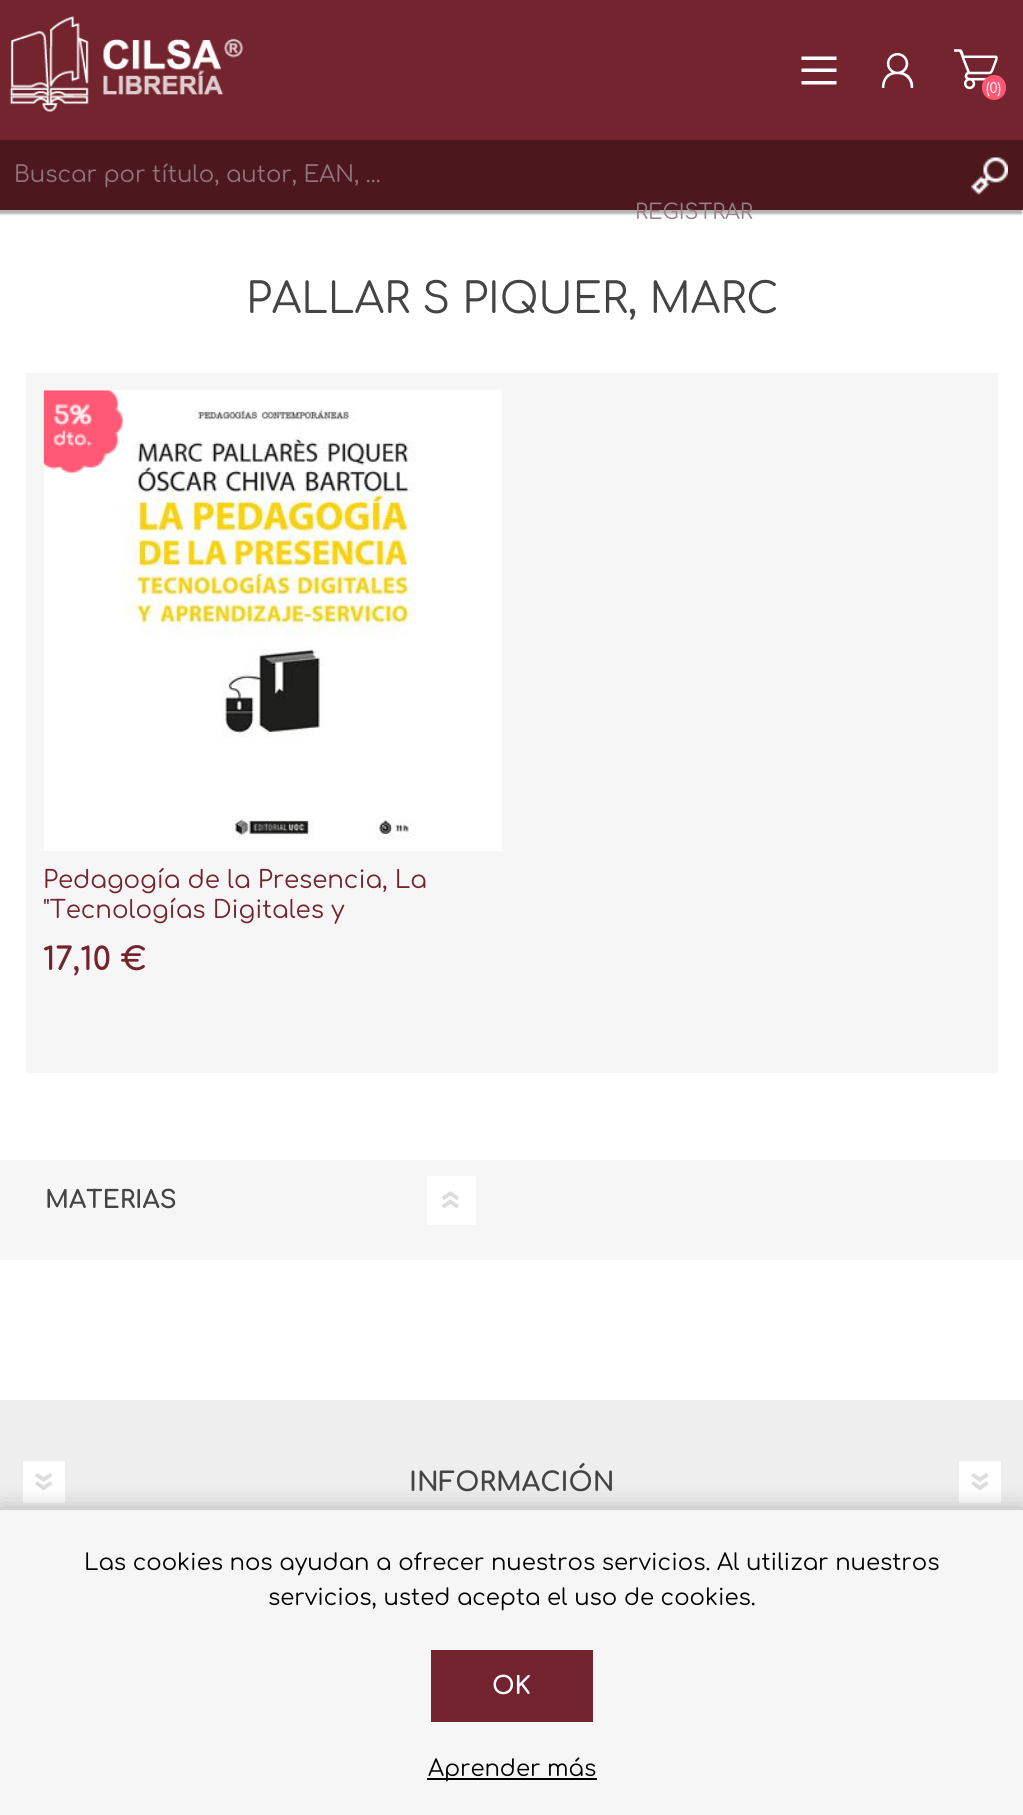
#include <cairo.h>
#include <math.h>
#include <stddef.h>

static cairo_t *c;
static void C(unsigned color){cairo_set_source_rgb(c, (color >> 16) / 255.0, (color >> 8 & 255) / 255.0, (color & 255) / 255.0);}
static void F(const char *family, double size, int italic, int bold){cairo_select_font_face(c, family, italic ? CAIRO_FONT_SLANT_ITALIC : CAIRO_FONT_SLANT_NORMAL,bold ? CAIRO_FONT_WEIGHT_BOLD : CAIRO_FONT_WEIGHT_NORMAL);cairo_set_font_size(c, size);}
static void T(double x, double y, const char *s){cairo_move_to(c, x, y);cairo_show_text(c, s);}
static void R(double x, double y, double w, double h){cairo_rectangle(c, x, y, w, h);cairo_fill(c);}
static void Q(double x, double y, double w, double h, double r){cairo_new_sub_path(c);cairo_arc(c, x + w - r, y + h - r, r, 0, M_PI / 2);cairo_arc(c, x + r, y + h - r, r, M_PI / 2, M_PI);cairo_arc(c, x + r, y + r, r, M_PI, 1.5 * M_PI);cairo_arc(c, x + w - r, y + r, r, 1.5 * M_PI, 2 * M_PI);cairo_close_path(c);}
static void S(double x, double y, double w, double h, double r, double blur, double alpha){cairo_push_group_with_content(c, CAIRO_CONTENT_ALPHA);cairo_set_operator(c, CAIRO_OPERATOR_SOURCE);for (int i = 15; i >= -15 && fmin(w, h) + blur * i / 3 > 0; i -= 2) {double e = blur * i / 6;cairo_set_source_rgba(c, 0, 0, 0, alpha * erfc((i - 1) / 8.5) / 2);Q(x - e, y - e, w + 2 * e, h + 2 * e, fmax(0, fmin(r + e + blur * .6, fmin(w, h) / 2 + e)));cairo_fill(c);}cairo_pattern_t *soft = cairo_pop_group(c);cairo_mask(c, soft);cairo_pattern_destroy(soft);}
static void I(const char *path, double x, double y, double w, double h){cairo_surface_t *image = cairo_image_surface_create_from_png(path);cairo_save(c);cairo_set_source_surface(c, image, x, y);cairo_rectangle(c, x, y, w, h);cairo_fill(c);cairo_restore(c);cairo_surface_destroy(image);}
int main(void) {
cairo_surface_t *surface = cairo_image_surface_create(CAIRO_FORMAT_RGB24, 1023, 1815);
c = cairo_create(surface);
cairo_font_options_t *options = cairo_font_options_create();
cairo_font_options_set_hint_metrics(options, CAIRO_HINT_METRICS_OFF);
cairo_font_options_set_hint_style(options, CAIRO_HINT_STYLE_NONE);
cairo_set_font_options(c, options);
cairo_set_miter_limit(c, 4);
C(0xffffff);
cairo_paint(c);
C(0x73242e);
R(0,0,1023,140);
I("1.png",9,16,234,96);
C(0x000000);
S(-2,144,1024,70,0,1,.3);
C(0x4c181e);
R(0,140,1023,70);
F("Comfortaa",22.75,0,0);
C(0x947478);
T(14,182,"Buscar por título, autor, EAN, ...");
I("2.png",971,157,37,38);
C(0xffffff);
cairo_new_path(c);
cairo_move_to(c,801.5,56.5);
cairo_line_to(c,801.5,60);
cairo_line_to(c,836.5,60);
cairo_line_to(c,836.5,56.5);
cairo_close_path(c);
cairo_move_to(c,801.5,72);
cairo_line_to(c,836.5,72);
cairo_line_to(c,836.5,68.5);
cairo_line_to(c,801.5,68.5);
cairo_close_path(c);
cairo_move_to(c,801.5,84.5);
cairo_line_to(c,836.5,84.5);
cairo_line_to(c,836.5,81);
cairo_line_to(c,801.5,81);
cairo_close_path(c);
cairo_fill(c);
I("3.png",954,49,44,41);
C(0xff5874);
Q(982,75,24,25,12);
cairo_fill(c);
F("Comfortaa",14,0,0);
C(0xffffff);
T(986,93,"(0)");
I("4.png",881,52,33,36);
F("Comfortaa",21,0,0);
C(0x998184);
T(635,219,"REGISTRAR");
F("Comfortaa",42,0,0);
C(0x444444);
T(246,313,"PALLAR S PIQUER, MARC");
C(0xf6f6f6);
R(26,373,972,700);
C(0xffffff);
R(44,390,458,461);
I("6.png",121,408,300,432);
I("5.png",43,390,80,83);
F("Comfortaa",24.5,0,0);
C(0x73242e);
T(43,888,"Pedagogía de la Presencia, La");
T(43,918,"\"Tecnologías Digitales y");
F("Comfortaa",31.5,0,1);
T(43,970,"17,10 €");
C(0xf6f6f6);
R(0,1160,1023,100);
F("Comfortaa",24.5,0,1);
C(0x444444);
T(45,1208,"MATERIAS");
C(0xffffff);
R(427,1176,49,49);
I("7.png",441,1191,18,18);
C(0xeeeeee);
R(0,1400,1023,110);
C(0xffffff);
R(23,1461,42,42);
I("8.png",35,1473,18,18);
F("Comfortaa",26.25,0,1);
C(0x444444);
T(409,1491,"INFORMACIÓN");
C(0xffffff);
R(959,1461,42,42);
I("9.png",971,1473,18,18);
C(0x000000);
S(0,1512,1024,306,0,13,.3);
C(0xf6f6f6);
R(0,1510,1023,305);
F("Comfortaa",22.75,0,0);
C(0x000000);
T(84,1570,"Las cookies nos ayudan a ofrecer nuestros servicios. Al utilizar nuestros");
T(268,1605,"servicios, usted acepta el uso de cookies.");
C(0x73242e);
R(431,1650,162,72);
F("Comfortaa",24.5,0,1);
C(0xffffff);
T(492,1694,"OK");
C(0x000000);
R(427,1778,170,2);
F("Comfortaa",22.75,0,0);
T(428,1776,"Aprender más");
cairo_surface_write_to_png(surface, "o.png");
cairo_font_options_destroy(options);
cairo_destroy(c);
cairo_surface_destroy(surface);
return 0;
}
